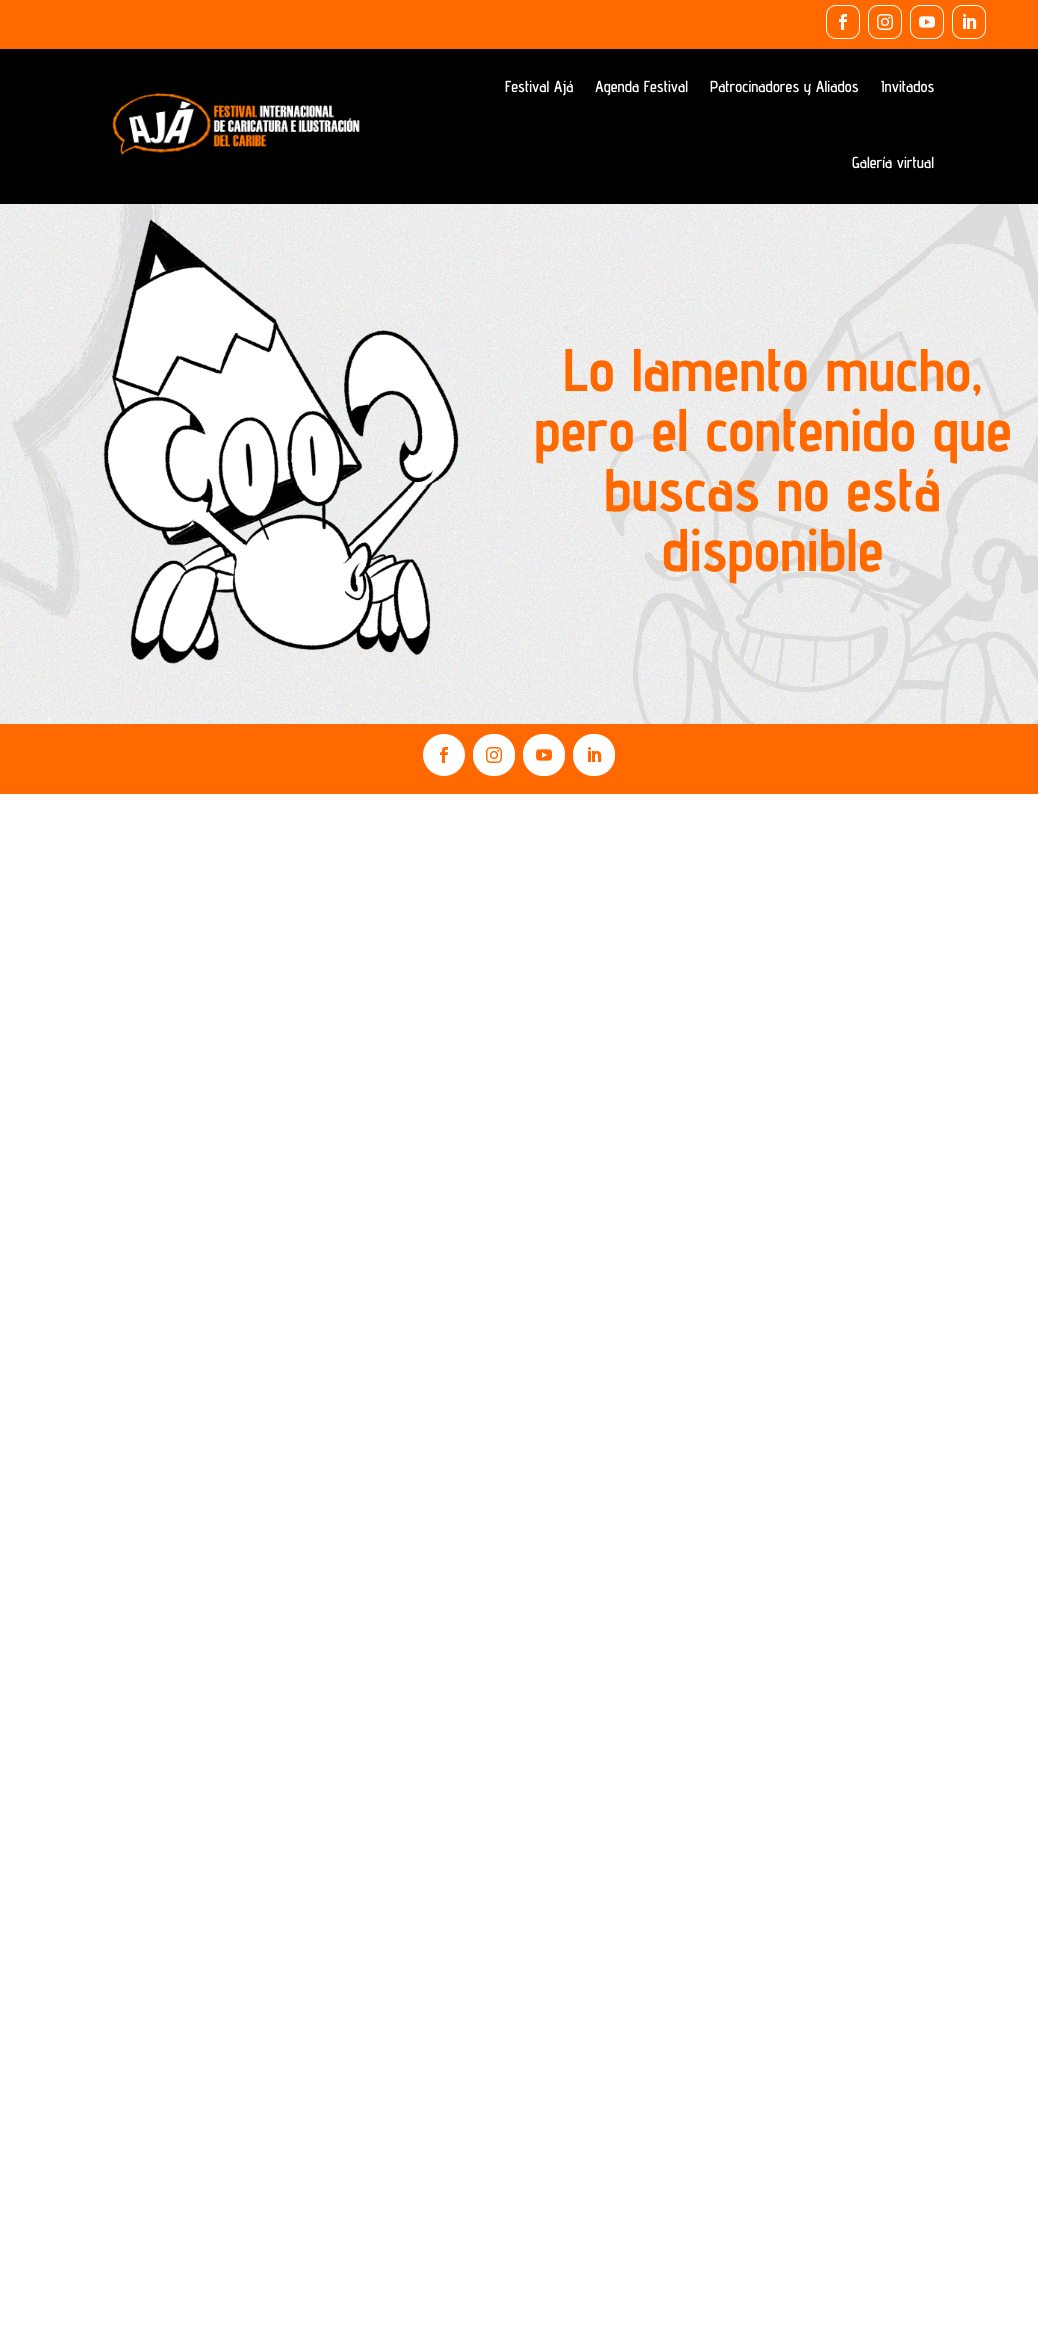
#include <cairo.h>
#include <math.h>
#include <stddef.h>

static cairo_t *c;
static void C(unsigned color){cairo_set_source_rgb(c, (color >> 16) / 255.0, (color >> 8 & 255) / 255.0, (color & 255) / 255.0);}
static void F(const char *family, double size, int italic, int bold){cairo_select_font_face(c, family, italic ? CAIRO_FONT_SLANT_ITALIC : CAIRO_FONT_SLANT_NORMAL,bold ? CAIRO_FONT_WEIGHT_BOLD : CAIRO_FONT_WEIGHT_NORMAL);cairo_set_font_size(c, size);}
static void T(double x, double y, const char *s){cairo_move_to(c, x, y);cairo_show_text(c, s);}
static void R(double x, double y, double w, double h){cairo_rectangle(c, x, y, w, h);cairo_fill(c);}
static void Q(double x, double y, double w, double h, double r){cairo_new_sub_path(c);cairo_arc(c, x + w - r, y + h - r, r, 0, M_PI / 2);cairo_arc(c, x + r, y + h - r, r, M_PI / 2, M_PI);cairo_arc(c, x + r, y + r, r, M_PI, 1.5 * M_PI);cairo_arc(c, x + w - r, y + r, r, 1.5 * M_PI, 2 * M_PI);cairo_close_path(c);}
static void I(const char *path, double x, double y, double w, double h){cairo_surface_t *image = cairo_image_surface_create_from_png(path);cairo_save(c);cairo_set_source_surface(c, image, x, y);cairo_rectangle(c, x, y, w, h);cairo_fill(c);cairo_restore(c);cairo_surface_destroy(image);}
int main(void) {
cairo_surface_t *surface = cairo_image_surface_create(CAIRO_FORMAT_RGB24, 1038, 2345);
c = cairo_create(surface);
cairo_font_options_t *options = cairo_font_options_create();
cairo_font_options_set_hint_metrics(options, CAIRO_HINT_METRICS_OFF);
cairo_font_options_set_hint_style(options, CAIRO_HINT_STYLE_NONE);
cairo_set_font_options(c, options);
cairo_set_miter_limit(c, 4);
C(0xffffff);
cairo_paint(c);
C(0x000000);
R(0,49,1038,155);
C(0xff6900);
R(0,0,1038,49);
Q(826.5,5.5,33,33,9.5);
C(0xffffff);
cairo_set_line_width(c,1);
cairo_stroke(c);
I("1.png",839,14,8,16);
Q(868.5,5.5,33,33,9.5);
cairo_stroke(c);
I("2.png",877,14,16,16);
Q(910.5,5.5,33,33,9.5);
cairo_stroke(c);
I("3.png",919,16,16,12);
Q(952.5,5.5,33,33,9.5);
cairo_stroke(c);
I("4.png",963,14,14,15);
I("5.png",112,93,248,62);
F("Advent Pro SemiBold",16,0,0);
T(505,92,"Festival Ajá");
T(595,92,"Agenda Festival");
T(710,92,"Patrocinadores y Aliados");
T(881,92,"Invitados");
T(852,168,"Galería virtual");
I("6.png",0,204,1038,520);
I("7.png",103,219,356,445);
F("Advent Pro",60,0,1);
C(0xff6900);
T(563,391,"Lo lamento mucho,");
T(534,451,"pero el contenido que");
T(604,511,"buscas no está");
T(662,571,"disponible");
R(0,724,1038,70);
C(0xffffff);
cairo_new_path(c);
cairo_arc(c,444,755,21,0,2 * M_PI);
cairo_fill(c);
I("8.png",440,747,8,16);
Q(473,734,42,42,20);
cairo_fill(c);
I("9.png",486,747,16,16);
Q(523,734,42,42,20);
cairo_fill(c);
I("10.png",536,749,16,12);
Q(573,734,42,42,20);
cairo_fill(c);
I("11.png",588,747,14,15);
cairo_surface_write_to_png(surface, "o.png");
cairo_font_options_destroy(options);
cairo_destroy(c);
cairo_surface_destroy(surface);
return 0;
}
